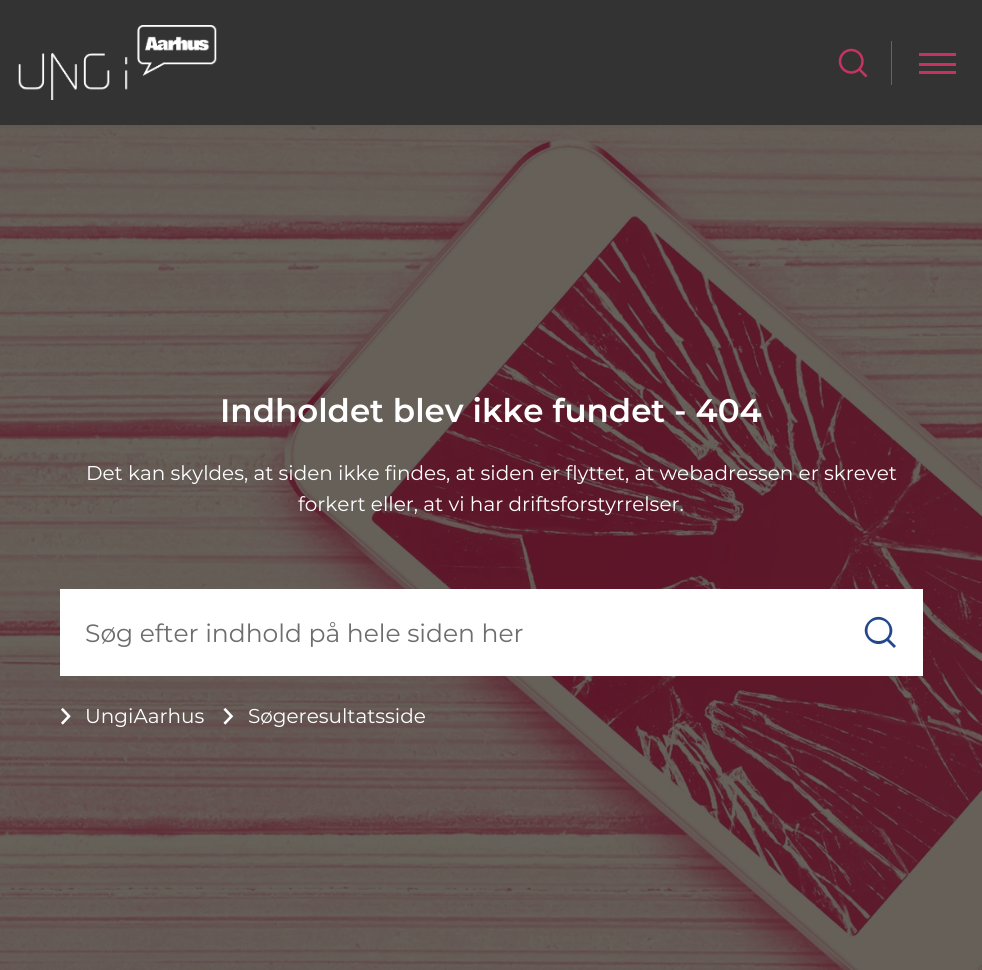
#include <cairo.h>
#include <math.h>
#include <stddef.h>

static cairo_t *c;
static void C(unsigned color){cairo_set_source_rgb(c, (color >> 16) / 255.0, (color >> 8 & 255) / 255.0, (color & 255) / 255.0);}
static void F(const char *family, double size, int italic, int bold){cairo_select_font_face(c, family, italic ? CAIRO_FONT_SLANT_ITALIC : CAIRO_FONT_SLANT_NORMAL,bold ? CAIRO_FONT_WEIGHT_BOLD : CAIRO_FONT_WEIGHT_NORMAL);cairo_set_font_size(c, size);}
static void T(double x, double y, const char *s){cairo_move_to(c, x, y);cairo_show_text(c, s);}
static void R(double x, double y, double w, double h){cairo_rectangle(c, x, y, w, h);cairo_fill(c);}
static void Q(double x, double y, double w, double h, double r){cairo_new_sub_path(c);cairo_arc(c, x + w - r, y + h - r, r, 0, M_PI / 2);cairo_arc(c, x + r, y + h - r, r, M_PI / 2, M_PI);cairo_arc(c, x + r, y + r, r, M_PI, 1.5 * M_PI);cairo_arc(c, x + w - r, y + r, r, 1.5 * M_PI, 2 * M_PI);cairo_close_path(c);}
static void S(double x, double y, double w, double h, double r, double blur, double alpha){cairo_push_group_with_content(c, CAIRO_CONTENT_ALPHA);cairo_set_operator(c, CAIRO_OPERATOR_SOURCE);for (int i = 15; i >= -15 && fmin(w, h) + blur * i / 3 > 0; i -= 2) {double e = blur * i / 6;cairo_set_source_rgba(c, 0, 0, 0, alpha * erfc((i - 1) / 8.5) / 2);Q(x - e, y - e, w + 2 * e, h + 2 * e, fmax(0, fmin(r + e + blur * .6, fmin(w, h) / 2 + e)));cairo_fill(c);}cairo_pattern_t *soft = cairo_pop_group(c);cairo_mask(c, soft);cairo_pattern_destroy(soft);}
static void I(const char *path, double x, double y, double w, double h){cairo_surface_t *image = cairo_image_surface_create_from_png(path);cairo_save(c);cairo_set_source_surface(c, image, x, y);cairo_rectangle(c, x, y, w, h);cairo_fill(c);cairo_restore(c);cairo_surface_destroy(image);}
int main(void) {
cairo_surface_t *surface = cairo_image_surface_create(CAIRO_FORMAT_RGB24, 982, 970);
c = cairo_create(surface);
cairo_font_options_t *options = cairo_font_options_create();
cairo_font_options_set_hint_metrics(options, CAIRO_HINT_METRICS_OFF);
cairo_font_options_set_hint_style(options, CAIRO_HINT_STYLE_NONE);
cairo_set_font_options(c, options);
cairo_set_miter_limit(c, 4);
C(0xffffff);
cairo_paint(c);
I("3.png",0,125,982,845);
C(0x000000);
S(0,3,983,125,0,2.5,.05);
C(0x333333);
R(0,0,982,125);
I("1.png",18,25,199,75);
I("2.png",838,48,30,30);
C(0xc73360);
R(891,41,1,44);
R(919,53,37,3);
R(919,63,37,3);
R(919,71,37,3);
F("Montserrat SemiBold",32.5,0,0);
C(0xffffff);
T(220,422,"Indholdet blev ikke fundet - 404");
F("Montserrat",20,0,0);
T(86,480,"Det kan skyldes, at siden ikke findes, at siden er flyttet, at webadressen er skrevet");
T(298,511,"forkert eller, at vi har driftsforstyrrelser.");
R(60,589,863,87);
F("Montserrat",25,0,0);
C(0x6d6d6d);
T(85,642,"Søg efter indhold på hele siden her");
C(0x23468d);
cairo_set_fill_rule(c,CAIRO_FILL_RULE_EVEN_ODD);
cairo_new_path(c);
cairo_move_to(c,887,641);
cairo_curve_to(c,874,651.5,856.5,633,869,621);
cairo_curve_to(c,881.5,608.5,900,627,889,639);
cairo_line_to(c,896,646);
cairo_line_to(c,894,648);
cairo_close_path(c);
cairo_move_to(c,889.5,630.5);
cairo_curve_to(c,889.5,644.5,867.5,644.5,867.5,630.5);
cairo_curve_to(c,867.5,616,889.5,616,889.5,630.5);
cairo_close_path(c);
cairo_fill(c);
I("4.png",61,707,10,18);
F("Montserrat",20,0,0);
C(0xffffff);
T(85,723,"UngiAarhus");
I("5.png",223,707,11,18);
T(248,723,"Søgeresultatsside");
cairo_surface_write_to_png(surface, "o.png");
cairo_font_options_destroy(options);
cairo_destroy(c);
cairo_surface_destroy(surface);
return 0;
}
